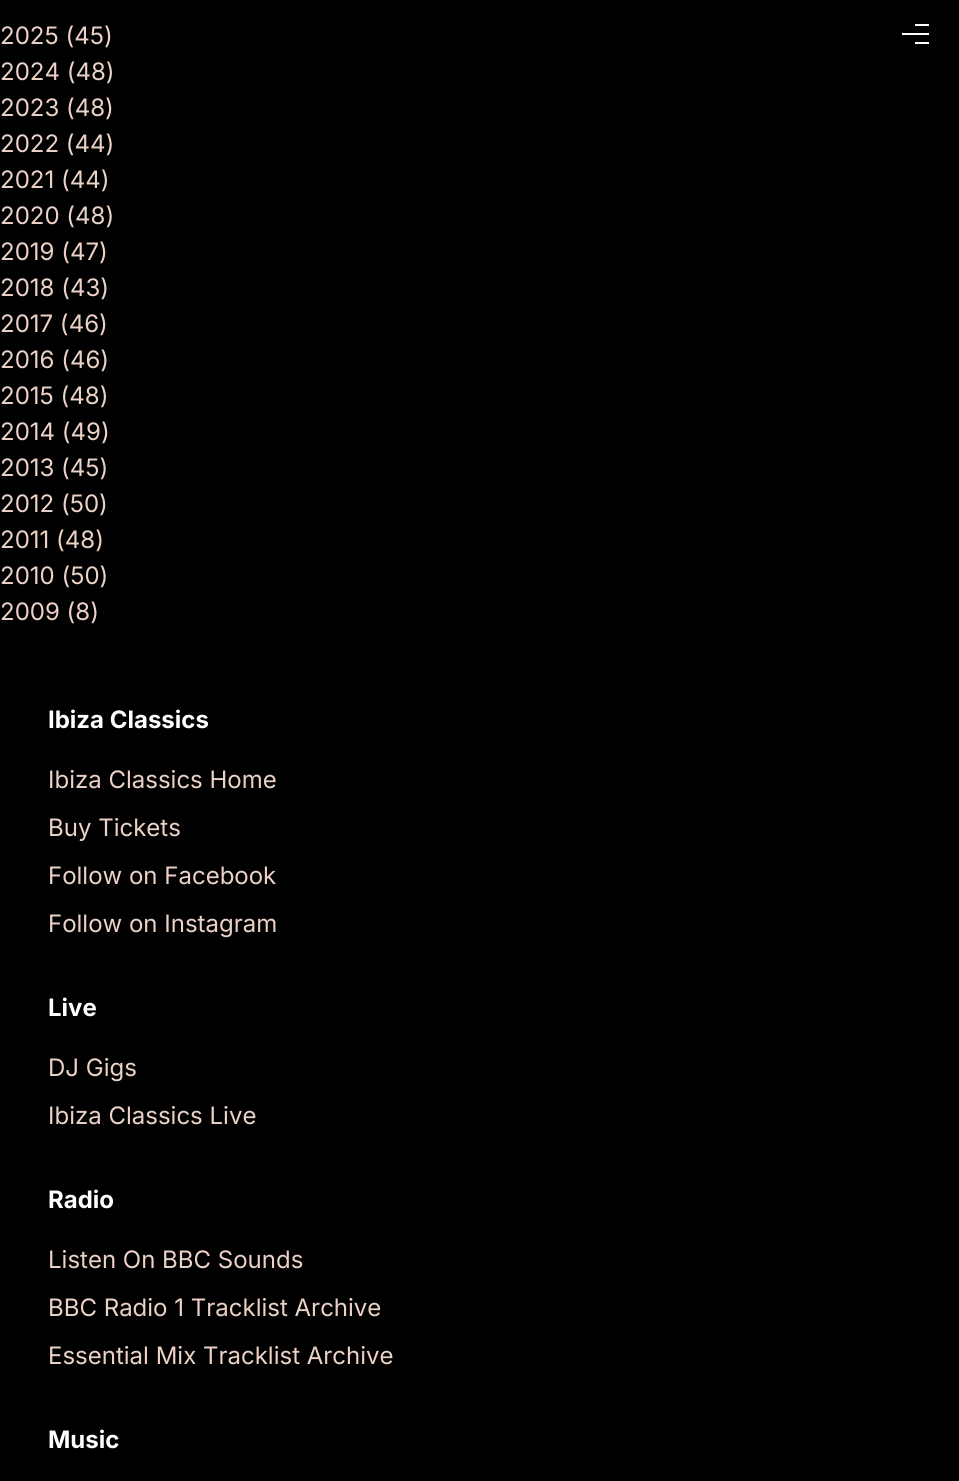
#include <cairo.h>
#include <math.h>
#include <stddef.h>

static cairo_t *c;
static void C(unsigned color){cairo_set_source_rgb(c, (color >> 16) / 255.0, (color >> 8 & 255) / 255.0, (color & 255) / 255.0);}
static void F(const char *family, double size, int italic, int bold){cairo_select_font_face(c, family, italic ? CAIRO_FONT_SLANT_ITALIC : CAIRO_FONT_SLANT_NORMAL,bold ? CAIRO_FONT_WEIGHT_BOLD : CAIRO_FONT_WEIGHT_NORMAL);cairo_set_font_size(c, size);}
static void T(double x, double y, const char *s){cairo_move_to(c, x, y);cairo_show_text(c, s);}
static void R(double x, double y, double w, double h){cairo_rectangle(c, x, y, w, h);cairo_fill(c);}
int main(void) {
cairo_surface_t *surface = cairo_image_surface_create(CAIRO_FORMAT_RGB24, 959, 1481);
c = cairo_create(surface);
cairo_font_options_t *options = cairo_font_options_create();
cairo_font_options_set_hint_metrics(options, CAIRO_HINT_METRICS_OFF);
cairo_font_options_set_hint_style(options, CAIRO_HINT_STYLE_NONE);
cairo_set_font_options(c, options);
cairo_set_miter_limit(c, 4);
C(0x000000);
cairo_paint(c);
F("Inter",24,0,0);
C(0xecd2c6);
T(0,44,"2025 (45)");
T(0,80,"2024 (48)");
T(0,116,"2023 (48)");
T(0,152,"2022 (44)");
T(0,188,"2021 (44)");
T(0,224,"2020 (48)");
T(0,260,"2019 (47)");
T(0,296,"2018 (43)");
T(0,332,"2017 (46)");
T(0,368,"2016 (46)");
T(0,404,"2015 (48)");
T(0,440,"2014 (49)");
T(0,476,"2013 (45)");
T(0,512,"2012 (50)");
T(0,548,"2011 (48)");
T(0,584,"2010 (50)");
T(0,620,"2009 (8)");
F("Inter",24,0,1);
C(0xffffff);
T(48,728,"Ibiza Classics");
F("Inter",24,0,0);
C(0xecd2c6);
T(48,788,"Ibiza Classics Home");
T(48,836,"Buy Tickets");
T(48,884,"Follow on Facebook");
T(48,932,"Follow on Instagram");
F("Inter",24,0,1);
C(0xffffff);
T(48,1016,"Live");
F("Inter",24,0,0);
C(0xecd2c6);
T(48,1076,"DJ Gigs");
T(48,1124,"Ibiza Classics Live");
F("Inter",24,0,1);
C(0xffffff);
T(48,1208,"Radio");
F("Inter",24,0,0);
C(0xecd2c6);
T(48,1268,"Listen On BBC Sounds");
T(48,1316,"BBC Radio 1 Tracklist Archive");
T(48,1364,"Essential Mix Tracklist Archive");
F("Inter",24,0,1);
C(0xffffff);
T(48,1448,"Music");
R(902,33,27,2);
R(915,24,14,2);
R(915,42,14,2);
cairo_surface_write_to_png(surface, "o.png");
cairo_font_options_destroy(options);
cairo_destroy(c);
cairo_surface_destroy(surface);
return 0;
}
